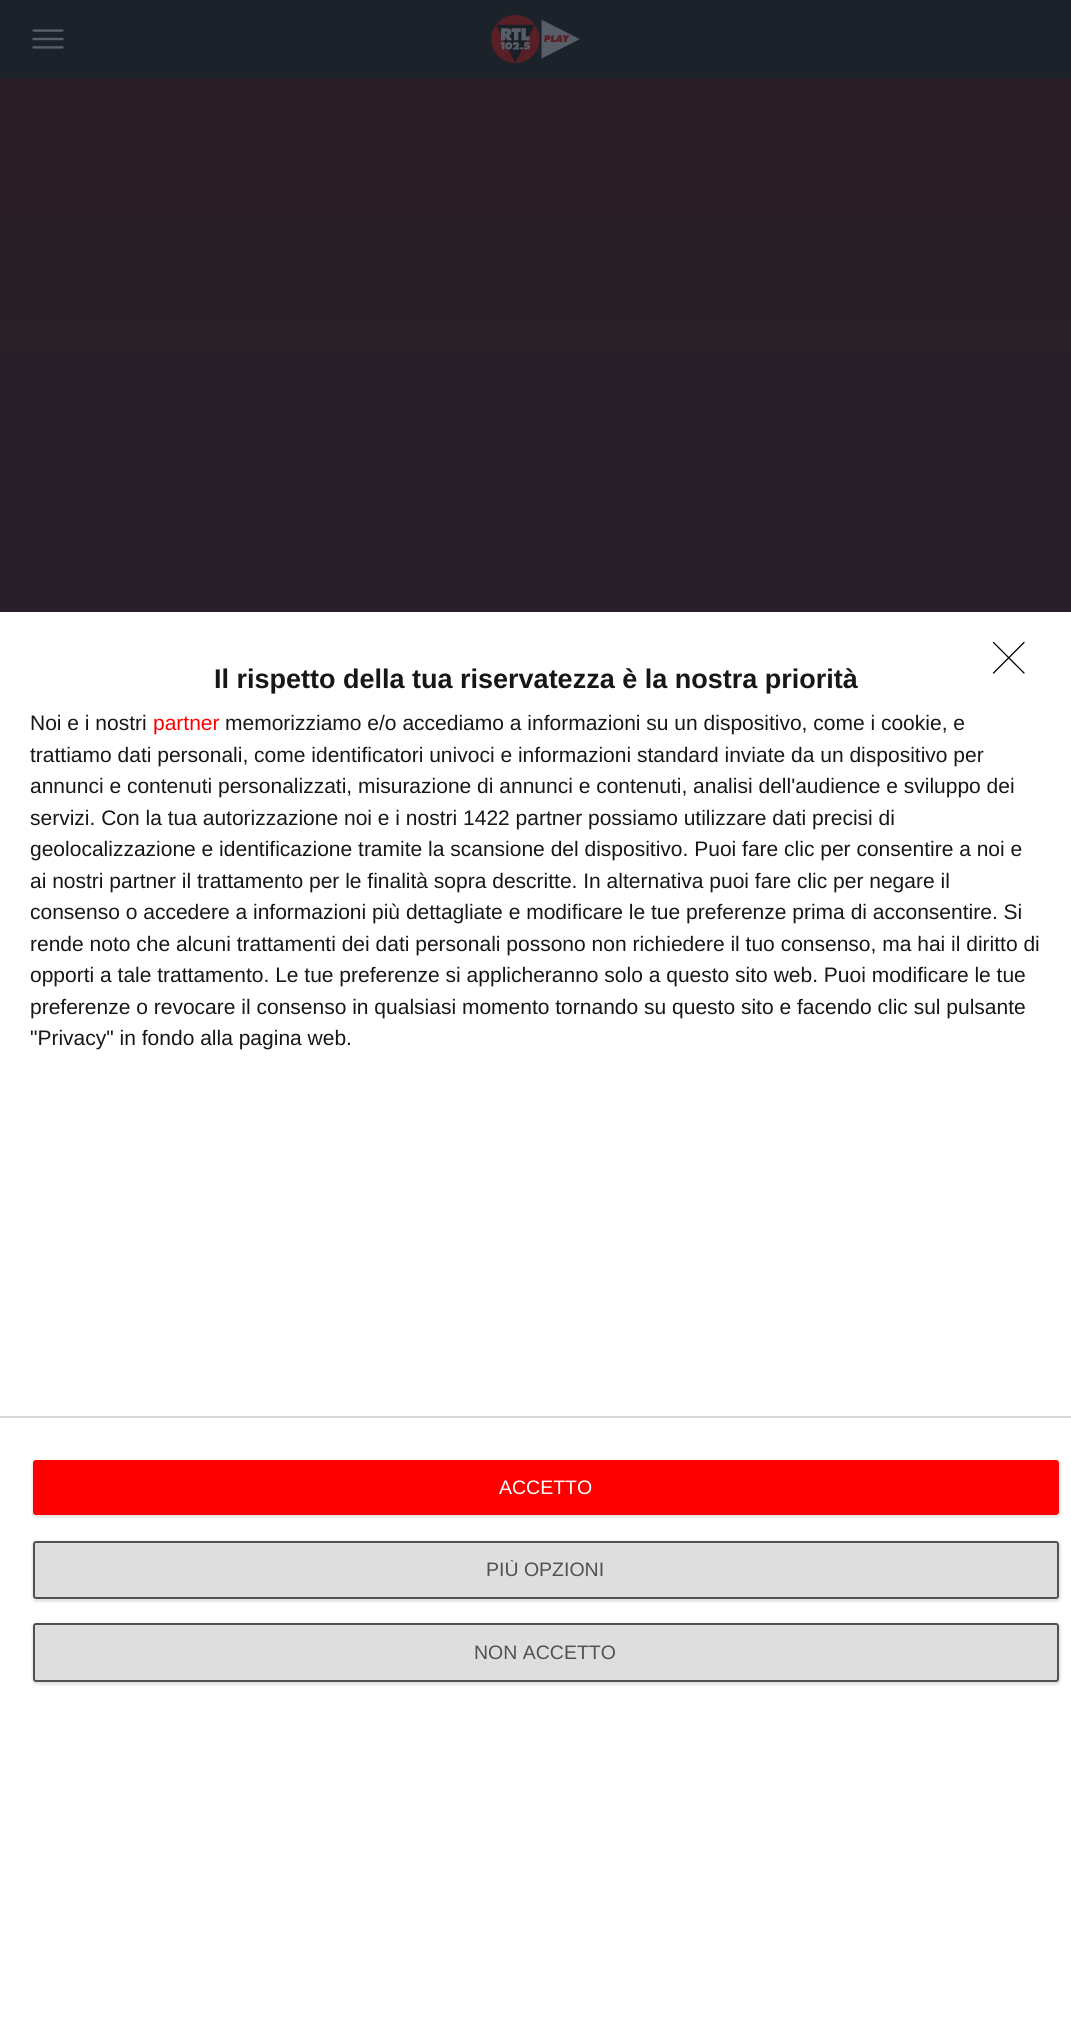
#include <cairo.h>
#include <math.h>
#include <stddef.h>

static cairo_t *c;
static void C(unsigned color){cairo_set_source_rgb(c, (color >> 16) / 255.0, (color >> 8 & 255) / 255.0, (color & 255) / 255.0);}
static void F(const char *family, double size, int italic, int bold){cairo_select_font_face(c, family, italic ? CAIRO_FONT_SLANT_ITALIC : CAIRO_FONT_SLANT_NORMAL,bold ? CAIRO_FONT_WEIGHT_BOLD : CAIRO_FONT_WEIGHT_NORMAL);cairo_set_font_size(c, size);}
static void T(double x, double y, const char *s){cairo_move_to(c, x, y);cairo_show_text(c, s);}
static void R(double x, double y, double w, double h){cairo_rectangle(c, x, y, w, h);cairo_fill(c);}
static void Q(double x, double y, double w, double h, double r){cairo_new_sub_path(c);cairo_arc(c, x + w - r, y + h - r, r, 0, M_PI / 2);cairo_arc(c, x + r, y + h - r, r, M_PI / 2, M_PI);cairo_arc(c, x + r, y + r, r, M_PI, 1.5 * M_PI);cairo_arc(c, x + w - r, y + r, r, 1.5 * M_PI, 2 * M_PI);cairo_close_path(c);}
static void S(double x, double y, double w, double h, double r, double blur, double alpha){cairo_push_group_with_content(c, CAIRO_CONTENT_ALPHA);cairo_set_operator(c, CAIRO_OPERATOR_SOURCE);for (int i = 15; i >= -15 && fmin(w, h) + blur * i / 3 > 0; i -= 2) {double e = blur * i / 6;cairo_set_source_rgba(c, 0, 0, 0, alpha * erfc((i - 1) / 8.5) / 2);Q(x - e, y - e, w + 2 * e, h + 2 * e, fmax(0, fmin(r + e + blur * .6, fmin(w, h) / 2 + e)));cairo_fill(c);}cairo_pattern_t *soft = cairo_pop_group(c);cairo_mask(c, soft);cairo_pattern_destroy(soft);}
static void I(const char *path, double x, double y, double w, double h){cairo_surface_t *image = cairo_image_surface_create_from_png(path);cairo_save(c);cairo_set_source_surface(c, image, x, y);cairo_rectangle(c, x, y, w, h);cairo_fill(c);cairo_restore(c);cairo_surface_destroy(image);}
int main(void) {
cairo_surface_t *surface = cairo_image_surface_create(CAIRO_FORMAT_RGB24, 1071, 2040);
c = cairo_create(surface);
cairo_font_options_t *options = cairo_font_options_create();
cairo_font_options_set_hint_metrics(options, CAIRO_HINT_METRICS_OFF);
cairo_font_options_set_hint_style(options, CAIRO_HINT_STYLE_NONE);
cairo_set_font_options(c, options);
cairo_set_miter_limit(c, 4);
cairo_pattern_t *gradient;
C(0xffffff);
cairo_paint(c);
gradient = cairo_pattern_create_linear(535,0,536,2040);
cairo_pattern_add_color_stop_rgba(gradient,0,0.169,0.122,0.153,1);
cairo_pattern_add_color_stop_rgba(gradient,1,0.11,0.133,0.165,1);
cairo_set_source(c,gradient);
cairo_pattern_destroy(gradient);
R(0,78,1071,534);
C(0x1c222a);
R(0,0,1071,78);
I("1.png",32,29,32,20);
I("2.png",491,14,89,50);
cairo_new_path(c);
cairo_move_to(c,993.5,642.5);
cairo_line_to(c,1024,673);
cairo_move_to(c,1024,642.5);
cairo_line_to(c,993.5,673);
C(0x000000);
cairo_set_line_width(c,1.3);
cairo_set_line_cap(c,CAIRO_LINE_CAP_ROUND);
cairo_set_line_join(c,CAIRO_LINE_JOIN_ROUND);
cairo_stroke(c);
F("Liberation Sans",27,0,1);
C(0x171717);
T(214,688,"Il rispetto della tua riservatezza è la nostra priorità");
F("Liberation Sans",21,0,0);
T(30,730,"Noi e i nostri");
C(0xff0000);
T(153,730,"partner");
C(0x171717);
T(225,730,"memorizziamo e/o accediamo a informazioni su un dispositivo, come i cookie, e");
T(30,762,"trattiamo dati personali, come identificatori univoci e informazioni standard inviate da un dispositivo per");
T(30,793,"annunci e contenuti personalizzati, misurazione di annunci e contenuti, analisi dell'audience e sviluppo dei");
T(30,825,"servizi. Con la tua autorizzazione noi e i nostri 1422 partner possiamo utilizzare dati precisi di");
T(30,856,"geolocalizzazione e identificazione tramite la scansione del dispositivo. Puoi fare clic per consentire a noi e");
T(30,888,"ai nostri partner il trattamento per le finalità sopra descritte. In alternativa puoi fare clic per negare il");
T(30,919,"consenso o accedere a informazioni più dettagliate e modificare le tue preferenze prima di acconsentire. Si");
T(30,951,"rende noto che alcuni trattamenti dei dati personali possono non richiedere il tuo consenso, ma hai il diritto di");
T(30,982,"opporti a tale trattamento. Le tue preferenze si applicheranno solo a questo sito web. Puoi modificare le tue");
T(30,1014,"preferenze o revocare il consenso in qualsiasi momento tornando su questo sito e facendo clic sul pulsante");
T(30,1045,"\"Privacy\" in fondo alla pagina web.");
C(0xd8d8d8);
R(0,1416,1071,2);
C(0x000000);
S(32,1460,1029,58,5,1,.1);
C(0xff0000);
Q(33,1460,1026,55,3);
cairo_fill(c);
F("Liberation Sans",19.5,0,0);
C(0xffffff);
T(499,1494,"ACCETTO");
C(0x000000);
S(32,1541,1029,61,5,1,.1);
C(0xdedede);
Q(34,1542,1024,56,2);
cairo_fill_preserve(c);
C(0x515151);
cairo_set_line_width(c,2);
cairo_set_line_cap(c,CAIRO_LINE_CAP_BUTT);
cairo_set_line_join(c,CAIRO_LINE_JOIN_MITER);
cairo_stroke(c);
cairo_save(c);
cairo_rectangle(c,486,1560,119,20);
cairo_clip(c);
T(486,1576,"PIÙ OPZIONI");
cairo_restore(c);
C(0x000000);
S(32,1623,1029,62,5,1,.1);
C(0xdedede);
Q(34,1624,1024,57,2);
cairo_fill_preserve(c);
C(0x515151);
cairo_stroke(c);
T(474,1659,"NON ACCETTO");
cairo_surface_write_to_png(surface, "o.png");
cairo_font_options_destroy(options);
cairo_destroy(c);
cairo_surface_destroy(surface);
return 0;
}
